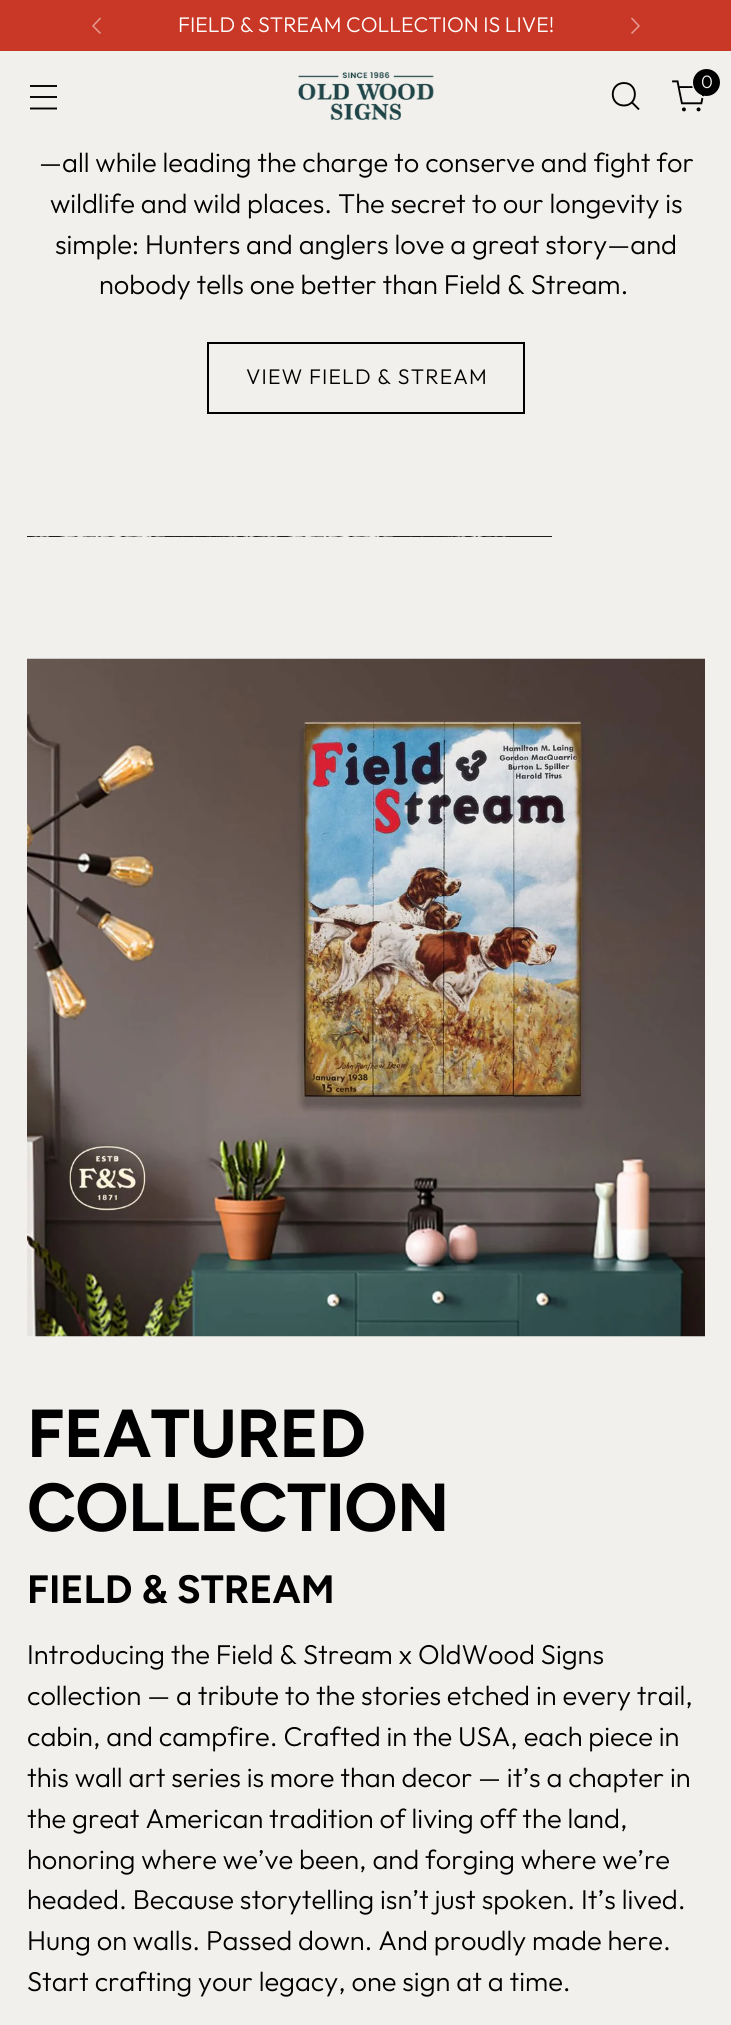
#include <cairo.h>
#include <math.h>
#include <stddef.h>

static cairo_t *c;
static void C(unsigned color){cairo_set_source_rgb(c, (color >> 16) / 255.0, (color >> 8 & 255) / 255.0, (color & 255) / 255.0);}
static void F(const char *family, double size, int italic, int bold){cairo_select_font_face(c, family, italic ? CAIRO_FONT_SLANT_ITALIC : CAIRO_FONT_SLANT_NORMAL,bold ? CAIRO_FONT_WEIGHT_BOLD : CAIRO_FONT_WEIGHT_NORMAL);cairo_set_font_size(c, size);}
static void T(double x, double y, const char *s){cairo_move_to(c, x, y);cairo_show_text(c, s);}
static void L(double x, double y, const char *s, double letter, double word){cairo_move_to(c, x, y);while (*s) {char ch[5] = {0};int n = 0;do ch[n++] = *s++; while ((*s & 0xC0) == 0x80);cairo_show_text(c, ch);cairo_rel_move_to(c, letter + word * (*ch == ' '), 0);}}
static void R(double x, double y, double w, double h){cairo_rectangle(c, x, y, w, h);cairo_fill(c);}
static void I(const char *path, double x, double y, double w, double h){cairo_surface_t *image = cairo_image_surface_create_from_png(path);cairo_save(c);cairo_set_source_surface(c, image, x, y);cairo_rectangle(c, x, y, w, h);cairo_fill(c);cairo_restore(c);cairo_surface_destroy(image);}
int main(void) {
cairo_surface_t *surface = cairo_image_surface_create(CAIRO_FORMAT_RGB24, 731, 2025);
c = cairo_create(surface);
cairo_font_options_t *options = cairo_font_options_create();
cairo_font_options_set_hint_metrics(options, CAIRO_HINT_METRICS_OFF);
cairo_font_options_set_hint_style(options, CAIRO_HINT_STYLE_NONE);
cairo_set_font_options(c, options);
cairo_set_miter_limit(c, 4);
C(0xf1f0ed);
cairo_paint(c);
C(0xc93827);
R(0,0,731,51);
cairo_new_path(c);
cairo_move_to(c,100.5,18);
cairo_line_to(c,93,26);
cairo_line_to(c,100.5,33.5);
C(0xe49c93);
cairo_set_line_width(c,1.5);
cairo_stroke(c);
cairo_new_path(c);
cairo_move_to(c,631.5,33.5);
cairo_line_to(c,639,26);
cairo_line_to(c,631.5,18);
cairo_stroke(c);
F("Outfit Light",21.2,0,0);
C(0xffffff);
T(178,32,"FIELD & STREAM COLLECTION IS LIVE!");
I("1.png",298,72,136,48);
cairo_new_path(c);
cairo_move_to(c,624,105.5);
cairo_curve_to(c,638.5,105.5,638.5,83,624,83);
cairo_curve_to(c,609,83,609,105.5,624,105.5);
cairo_close_path(c);
C(0x000000);
cairo_set_line_width(c,1.9);
cairo_set_line_cap(c,CAIRO_LINE_CAP_ROUND);
cairo_stroke(c);
cairo_new_path(c);
cairo_move_to(c,632,102.5);
cairo_line_to(c,639,109.5);
cairo_set_line_cap(c,CAIRO_LINE_CAP_BUTT);
cairo_stroke(c);
I("2.png",672,80,32,32);
cairo_arc(c,707.5,83.5,14.5,0,2 * M_PI);
C(0xf1f0ed);
cairo_set_line_width(c,2);
cairo_stroke(c);
C(0x000000);
cairo_arc(c,706.5,82.5,13.5,0,2 * M_PI);
cairo_fill(c);
F("Outfit Light",18,0,0);
C(0xf1f0ed);
T(701,88,"0");
cairo_new_path(c);
cairo_move_to(c,30,97);
cairo_line_to(c,57,97);
cairo_move_to(c,30,86);
cairo_line_to(c,57,86);
cairo_move_to(c,30,108.5);
cairo_line_to(c,57,108.5);
C(0x000000);
cairo_set_line_width(c,1.9);
cairo_stroke(c);
F("Outfit Light",27.25,0,0);
T(39,172,"—all while leading the charge to conserve and fight for");
T(50,213,"wildlife and wild places. The secret to our longevity is");
T(55,254,"simple: Hunters and anglers love a great story—and");
T(99,294,"nobody tells one better than Field & Stream.");
cairo_rectangle(c,208,343,316,70);
cairo_set_line_width(c,2);
cairo_stroke(c);
F("Outfit Light",21.2,0,0);
L(246,384,"VIEW FIELD & STREAM",1.1,0);
I("3.png",27,536,525,1);
I("4.png",27,658,678,679);
F("Figtree",67.75,0,1);
L(27,1457,"FEATURED",-.75,0);
L(27,1531,"COLLECTION",-.75,0);
F("Figtree",39.5,0,1);
T(27,1603,"FIELD & STREAM");
F("Outfit Light",27.25,0,0);
T(27,1664,"Introducing the Field & Stream x OldWood Signs");
T(27,1705,"collection — a tribute to the stories etched in every trail,");
T(27,1746,"cabin, and campfire. Crafted in the USA, each piece in");
T(27,1787,"this wall art series is more than decor — it’s a chapter in");
T(27,1828,"the great American tradition of living off the land,");
T(27,1869,"honoring where we’ve been, and forging where we’re");
T(27,1909,"headed. Because storytelling isn’t just spoken. It’s lived.");
T(27,1950,"Hung on walls. Passed down. And proudly made here.");
T(27,1991,"Start crafting your legacy, one sign at a time.");
cairo_surface_write_to_png(surface, "o.png");
cairo_font_options_destroy(options);
cairo_destroy(c);
cairo_surface_destroy(surface);
return 0;
}
